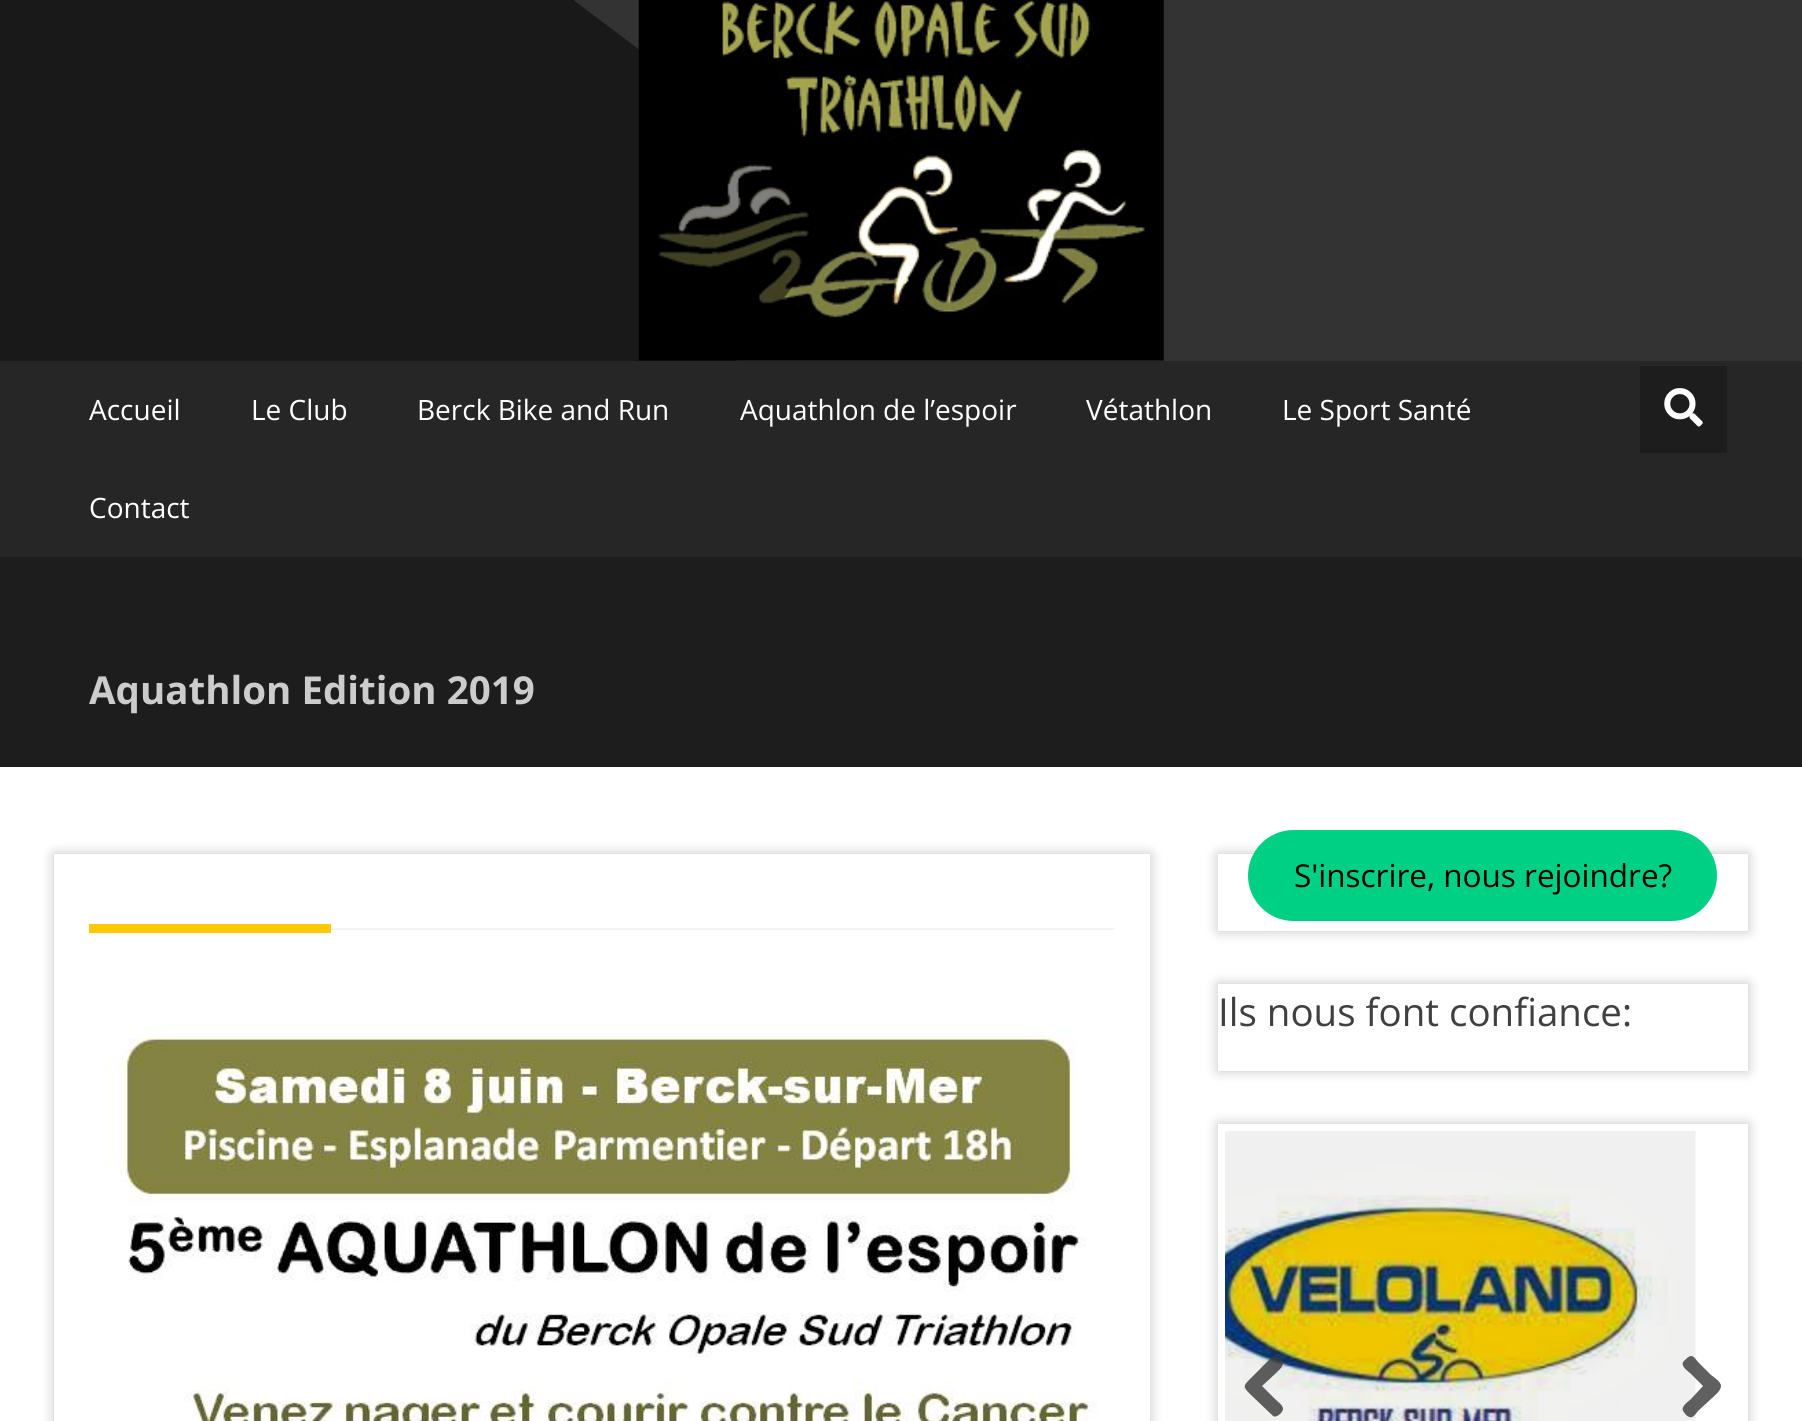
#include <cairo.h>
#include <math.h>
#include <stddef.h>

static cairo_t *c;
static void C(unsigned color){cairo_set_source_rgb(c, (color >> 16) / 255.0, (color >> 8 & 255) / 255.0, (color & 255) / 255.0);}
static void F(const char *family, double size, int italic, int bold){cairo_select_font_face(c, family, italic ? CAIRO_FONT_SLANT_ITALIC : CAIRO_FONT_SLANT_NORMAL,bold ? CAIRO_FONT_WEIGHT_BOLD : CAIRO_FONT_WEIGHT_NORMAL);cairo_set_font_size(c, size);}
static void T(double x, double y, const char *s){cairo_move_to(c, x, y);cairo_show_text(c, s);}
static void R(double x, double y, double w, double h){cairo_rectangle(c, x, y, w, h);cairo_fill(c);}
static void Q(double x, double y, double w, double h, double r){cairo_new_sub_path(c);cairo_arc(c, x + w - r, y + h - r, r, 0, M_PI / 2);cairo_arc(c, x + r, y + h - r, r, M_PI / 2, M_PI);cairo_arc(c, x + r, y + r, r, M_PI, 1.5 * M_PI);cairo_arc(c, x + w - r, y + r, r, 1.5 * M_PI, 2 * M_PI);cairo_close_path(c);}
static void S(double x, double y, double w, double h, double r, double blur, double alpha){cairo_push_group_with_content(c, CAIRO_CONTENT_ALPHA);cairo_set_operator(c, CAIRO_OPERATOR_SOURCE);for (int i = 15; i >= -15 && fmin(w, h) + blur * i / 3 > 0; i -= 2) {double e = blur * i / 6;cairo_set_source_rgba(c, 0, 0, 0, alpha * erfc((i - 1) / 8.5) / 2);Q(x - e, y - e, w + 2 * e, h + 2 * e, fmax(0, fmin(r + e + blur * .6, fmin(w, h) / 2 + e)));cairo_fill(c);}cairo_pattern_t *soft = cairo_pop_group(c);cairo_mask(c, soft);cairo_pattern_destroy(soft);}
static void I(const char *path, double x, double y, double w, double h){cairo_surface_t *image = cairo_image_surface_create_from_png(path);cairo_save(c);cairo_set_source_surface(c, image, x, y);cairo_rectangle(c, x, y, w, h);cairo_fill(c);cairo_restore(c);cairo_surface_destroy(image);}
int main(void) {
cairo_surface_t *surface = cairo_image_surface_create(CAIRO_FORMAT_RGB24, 1802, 1421);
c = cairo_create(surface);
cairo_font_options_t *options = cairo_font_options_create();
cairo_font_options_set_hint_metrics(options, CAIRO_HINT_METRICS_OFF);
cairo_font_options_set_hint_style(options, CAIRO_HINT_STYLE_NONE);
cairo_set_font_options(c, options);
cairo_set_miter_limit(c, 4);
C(0xffffff);
cairo_paint(c);
C(0x333333);
R(0,0,1802,361);
I("1.png",638,0,526,361);
cairo_save(c);
cairo_rectangle(c,0,0,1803,361);
cairo_clip(c);
cairo_set_source_rgba(c,0,0,0,0.5);
cairo_new_path(c);
cairo_move_to(c,-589,-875);
cairo_line_to(c,851,209);
cairo_line_to(c,-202,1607);
cairo_line_to(c,-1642,522);
cairo_close_path(c);
cairo_fill(c);
cairo_restore(c);
C(0x262626);
R(0,361,1802,196);
F("Open Sans",28,0,0);
C(0xffffff);
T(89,420,"Accueil");
T(251,420,"Le Club");
T(417,420,"Berck Bike and Run");
T(740,420,"Aquathlon de l’espoir");
T(1086,420,"Vétathlon");
T(1282,420,"Le Sport Santé");
T(89,518,"Contact");
C(0x1d1d1d);
R(1640,366,87,87);
I("2.png",1664,388,39,39);
R(0,557,1802,210);
F("Open Sans",38.5,0,1);
C(0xcccccc);
T(89,704,"Aquathlon Edition 2019");
C(0xc2c2c2);
S(54,854,1096,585,0,6,1);
C(0xffffff);
R(54,854,1096,567);
C(0xffc800);
R(89,924,242,9);
C(0xf4f4f4);
R(331,928,784,2);
I("3.png",107,1027,990,394);
cairo_save(c);
cairo_set_fill_rule(c,CAIRO_FILL_RULE_EVEN_ODD);
cairo_new_path(c);
cairo_move_to(c,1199,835);
cairo_line_to(c,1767,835);
cairo_line_to(c,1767,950);
cairo_line_to(c,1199,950);
cairo_close_path(c);
cairo_move_to(c,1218,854);
cairo_line_to(c,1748,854);
cairo_line_to(c,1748,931);
cairo_line_to(c,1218,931);
cairo_close_path(c);
cairo_clip(c);
C(0xc2c2c2);
S(1218,854,530,77,0,6,1);
cairo_restore(c);
C(0x00d084);
Q(1248,830,469,91,45.5);
cairo_fill(c);
F("Open Sans",31.5,0,0);
C(0x000000);
T(1294,887,"S'inscrire, nous rejoindre?");
cairo_save(c);
cairo_set_fill_rule(c,CAIRO_FILL_RULE_EVEN_ODD);
cairo_new_path(c);
cairo_move_to(c,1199,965);
cairo_line_to(c,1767,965);
cairo_line_to(c,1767,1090);
cairo_line_to(c,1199,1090);
cairo_close_path(c);
cairo_move_to(c,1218,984);
cairo_line_to(c,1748,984);
cairo_line_to(c,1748,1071);
cairo_line_to(c,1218,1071);
cairo_close_path(c);
cairo_clip(c);
C(0xc2c2c2);
S(1218,984,530,87,0,6,1);
cairo_restore(c);
F("Open Sans",38.5,0,0);
C(0x404040);
T(1218,1026,"Ils nous font confiance:");
cairo_save(c);
cairo_set_fill_rule(c,CAIRO_FILL_RULE_EVEN_ODD);
cairo_new_path(c);
cairo_move_to(c,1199,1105);
cairo_line_to(c,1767,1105);
cairo_line_to(c,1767,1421);
cairo_line_to(c,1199,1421);
cairo_close_path(c);
cairo_move_to(c,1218,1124);
cairo_line_to(c,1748,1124);
cairo_line_to(c,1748,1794);
cairo_line_to(c,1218,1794);
cairo_close_path(c);
cairo_clip(c);
C(0xc2c2c2);
S(1218,1124,530,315,0,6,1);
cairo_restore(c);
I("4.png",1225,1131,471,290);
cairo_set_source_rgba(c,0.224,0.224,0.224,0.8);
cairo_new_path(c);
cairo_move_to(c,1272,1415);
cairo_line_to(c,1250,1394);
cairo_curve_to(c,1243,1387,1243,1386,1250,1379);
cairo_line_to(c,1267,1362);
cairo_curve_to(c,1270,1359,1274,1354,1278,1357);
cairo_curve_to(c,1288,1363,1281,1368,1275,1374);
cairo_line_to(c,1262,1386);
cairo_line_to(c,1275,1399);
cairo_curve_to(c,1278,1402,1283,1405,1283,1409);
cairo_curve_to(c,1283,1411,1281,1413,1280,1414);
cairo_curve_to(c,1278,1416,1274,1418,1272,1415);
cairo_close_path(c);
cairo_fill(c);
cairo_new_path(c);
cairo_move_to(c,1721,1386);
cairo_curve_to(c,1721,1391,1714,1396,1711,1399);
cairo_line_to(c,1698,1411);
cairo_curve_to(c,1694,1416,1692,1420,1686,1415);
cairo_line_to(c,1683,1411);
cairo_curve_to(c,1681,1406,1688,1402,1691,1399);
cairo_line_to(c,1703,1386);
cairo_line_to(c,1691,1374);
cairo_curve_to(c,1688,1371,1681,1367,1683,1362);
cairo_line_to(c,1686,1359);
cairo_curve_to(c,1692,1353,1694,1357,1698,1362);
cairo_line_to(c,1711,1375);
cairo_curve_to(c,1714,1377,1721,1382,1721,1386);
cairo_close_path(c);
cairo_fill(c);
cairo_surface_write_to_png(surface, "o.png");
cairo_font_options_destroy(options);
cairo_destroy(c);
cairo_surface_destroy(surface);
return 0;
}
